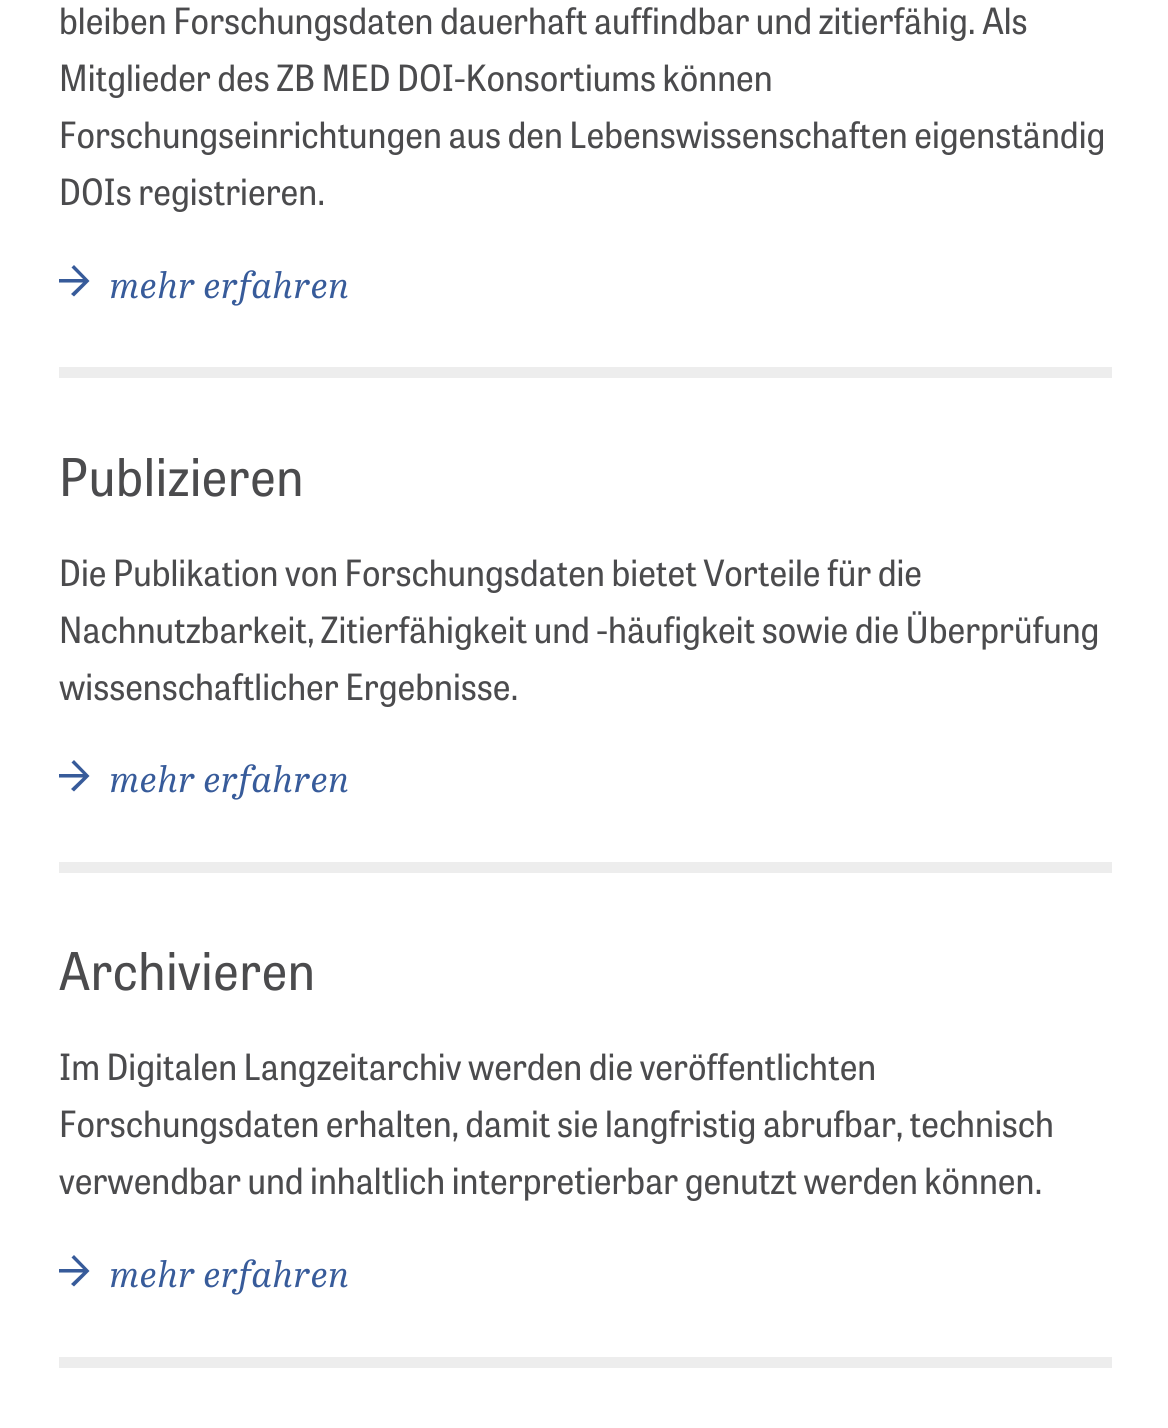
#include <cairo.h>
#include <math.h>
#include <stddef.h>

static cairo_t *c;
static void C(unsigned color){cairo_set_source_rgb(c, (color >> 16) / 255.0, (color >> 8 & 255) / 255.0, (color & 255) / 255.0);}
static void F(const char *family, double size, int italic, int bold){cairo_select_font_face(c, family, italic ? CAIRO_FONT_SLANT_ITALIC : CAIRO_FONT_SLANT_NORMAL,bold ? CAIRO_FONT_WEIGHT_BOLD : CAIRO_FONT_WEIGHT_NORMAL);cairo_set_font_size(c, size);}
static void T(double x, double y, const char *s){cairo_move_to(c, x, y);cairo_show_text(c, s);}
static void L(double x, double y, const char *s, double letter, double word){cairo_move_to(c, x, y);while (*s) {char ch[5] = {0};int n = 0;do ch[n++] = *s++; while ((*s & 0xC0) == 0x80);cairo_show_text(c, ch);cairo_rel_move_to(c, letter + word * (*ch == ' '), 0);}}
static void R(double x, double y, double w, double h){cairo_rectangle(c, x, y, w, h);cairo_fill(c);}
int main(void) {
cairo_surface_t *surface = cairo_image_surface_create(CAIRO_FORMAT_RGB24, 1168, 1428);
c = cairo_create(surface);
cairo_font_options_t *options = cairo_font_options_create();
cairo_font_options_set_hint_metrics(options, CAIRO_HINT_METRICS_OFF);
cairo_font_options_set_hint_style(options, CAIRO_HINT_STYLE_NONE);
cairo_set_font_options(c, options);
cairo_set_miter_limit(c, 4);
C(0xffffff);
cairo_paint(c);
F("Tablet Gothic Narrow",36,0,0);
C(0x4b4b4d);
T(59,34,"bleiben Forschungsdaten dauerhaft auffindbar und zitierfähig. Als");
T(59,91,"Mitglieder des ZB MED DOI-Konsortiums können");
T(59,148,"Forschungseinrichtungen aus den Lebenswissenschaften eigenständig");
T(59,205,"DOIs registrieren.");
C(0x375b9a);
cairo_new_path(c);
cairo_move_to(c,71,294);
cairo_line_to(c,83,282.5);
cairo_line_to(c,59,282.5);
cairo_line_to(c,59,279);
cairo_line_to(c,83,279);
cairo_line_to(c,71.5,267.5);
cairo_line_to(c,74,265);
cairo_line_to(c,89.5,281);
cairo_line_to(c,74,296.5);
cairo_close_path(c);
cairo_fill(c);
F("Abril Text",36,1,0);
L(110,298,"mehr erfahren",.7,0);
C(0xededed);
R(59,367,1053,11);
F("Tablet Gothic Narrow",51.75,0,0);
C(0x4b4b4d);
L(59,496,"Publizieren",.7,0);
F("Tablet Gothic Narrow",36,0,0);
T(59,586,"Die Publikation von Forschungsdaten bietet Vorteile für die");
T(59,643,"Nachnutzbarkeit, Zitierfähigkeit und -häufigkeit sowie die Überprüfung");
T(59,700,"wissenschaftlicher Ergebnisse.");
C(0x375b9a);
cairo_new_path(c);
cairo_move_to(c,71,789);
cairo_line_to(c,83,777.5);
cairo_line_to(c,59,777.5);
cairo_line_to(c,59,774);
cairo_line_to(c,83,774);
cairo_line_to(c,71.5,762.5);
cairo_line_to(c,74,760);
cairo_line_to(c,89.5,776);
cairo_line_to(c,74,791.5);
cairo_close_path(c);
cairo_fill(c);
F("Abril Text",36,1,0);
L(110,792,"mehr erfahren",.7,0);
C(0xededed);
R(59,862,1053,11);
F("Tablet Gothic Narrow",51.75,0,0);
C(0x4b4b4d);
L(59,990,"Archivieren",.7,0);
F("Tablet Gothic Narrow",36,0,0);
T(59,1080,"Im Digitalen Langzeitarchiv werden die veröffentlichten");
T(59,1137,"Forschungsdaten erhalten, damit sie langfristig abrufbar, technisch");
T(59,1194,"verwendbar und inhaltlich interpretierbar genutzt werden können.");
C(0x375b9a);
cairo_new_path(c);
cairo_move_to(c,71,1284);
cairo_line_to(c,83,1272.5);
cairo_line_to(c,59,1272.5);
cairo_line_to(c,59,1269);
cairo_line_to(c,83,1269);
cairo_line_to(c,71.5,1257.5);
cairo_line_to(c,74,1255);
cairo_line_to(c,89.5,1271);
cairo_line_to(c,74,1286.5);
cairo_close_path(c);
cairo_fill(c);
F("Abril Text",36,1,0);
L(110,1287,"mehr erfahren",.7,0);
C(0xededed);
R(59,1357,1053,11);
cairo_surface_write_to_png(surface, "o.png");
cairo_font_options_destroy(options);
cairo_destroy(c);
cairo_surface_destroy(surface);
return 0;
}
